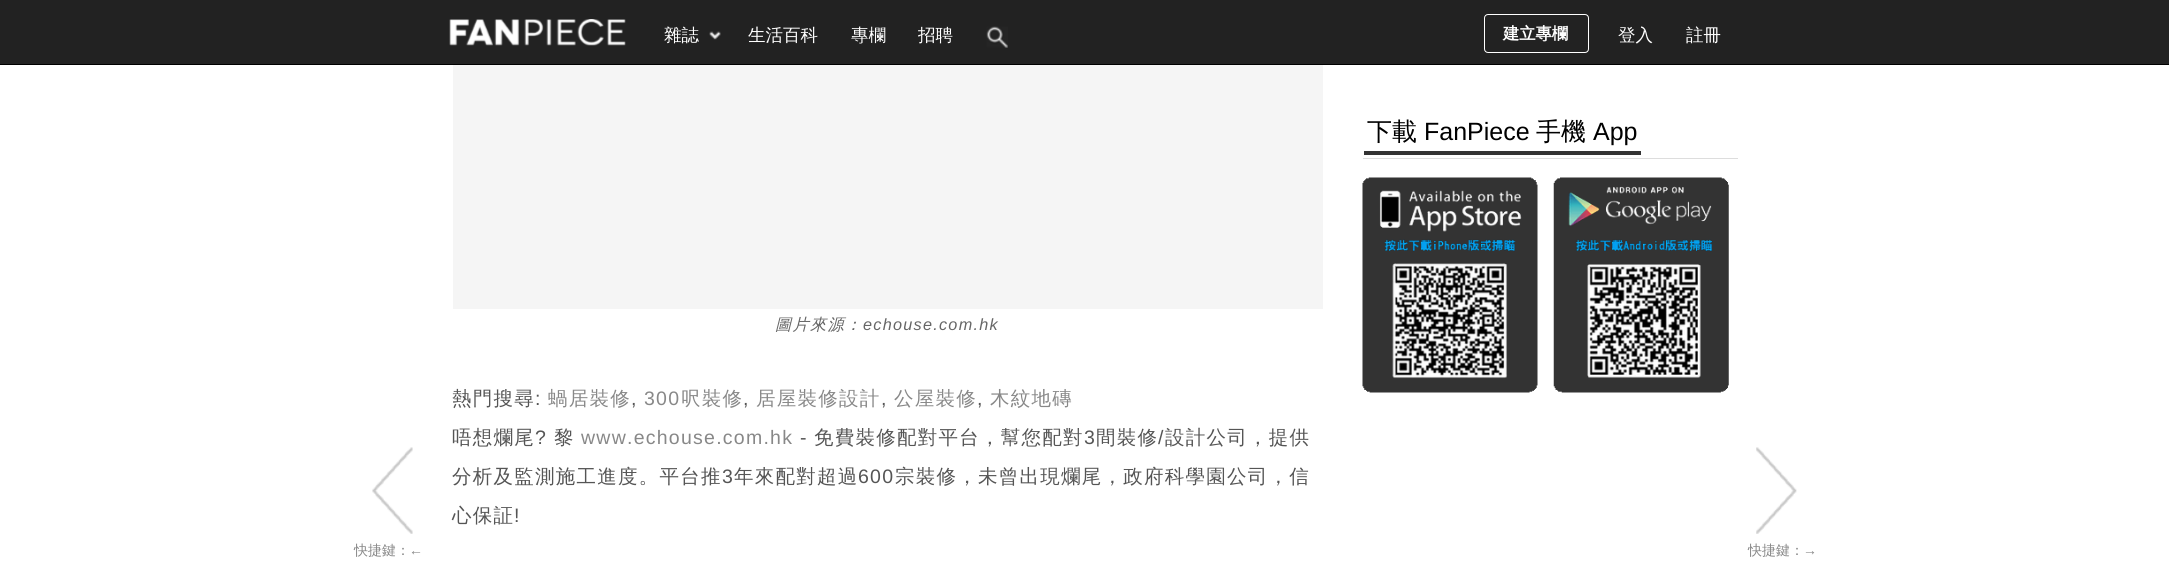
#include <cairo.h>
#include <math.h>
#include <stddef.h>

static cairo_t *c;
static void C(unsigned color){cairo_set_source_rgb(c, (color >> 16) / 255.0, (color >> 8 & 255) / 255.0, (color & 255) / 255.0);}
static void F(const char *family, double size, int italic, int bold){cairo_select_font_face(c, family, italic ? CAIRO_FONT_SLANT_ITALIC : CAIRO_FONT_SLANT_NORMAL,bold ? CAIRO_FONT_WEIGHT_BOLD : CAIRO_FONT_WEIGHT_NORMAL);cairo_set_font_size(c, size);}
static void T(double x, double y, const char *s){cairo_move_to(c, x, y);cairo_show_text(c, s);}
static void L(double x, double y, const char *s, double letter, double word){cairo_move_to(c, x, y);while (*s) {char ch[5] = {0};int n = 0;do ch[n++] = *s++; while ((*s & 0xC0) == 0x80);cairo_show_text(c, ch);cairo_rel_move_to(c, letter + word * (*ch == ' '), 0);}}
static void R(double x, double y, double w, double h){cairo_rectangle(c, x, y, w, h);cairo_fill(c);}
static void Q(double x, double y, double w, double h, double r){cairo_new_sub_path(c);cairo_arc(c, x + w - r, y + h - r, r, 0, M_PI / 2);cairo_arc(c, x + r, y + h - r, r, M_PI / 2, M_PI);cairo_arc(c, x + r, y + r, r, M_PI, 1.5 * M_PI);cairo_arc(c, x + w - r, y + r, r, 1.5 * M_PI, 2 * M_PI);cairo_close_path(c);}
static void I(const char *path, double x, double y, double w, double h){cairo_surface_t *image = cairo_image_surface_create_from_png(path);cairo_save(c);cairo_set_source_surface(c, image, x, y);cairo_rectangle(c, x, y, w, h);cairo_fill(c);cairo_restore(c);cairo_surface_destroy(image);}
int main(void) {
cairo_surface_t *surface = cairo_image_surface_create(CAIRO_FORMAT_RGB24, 2169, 585);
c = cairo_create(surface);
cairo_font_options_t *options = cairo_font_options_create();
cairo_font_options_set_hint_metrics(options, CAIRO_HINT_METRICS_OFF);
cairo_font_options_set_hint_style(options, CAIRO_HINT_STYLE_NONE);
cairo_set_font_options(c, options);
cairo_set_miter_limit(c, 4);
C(0xffffff);
cairo_paint(c);
C(0x222222);
R(0,0,2169,64);
C(0x000000);
R(0,64,2169,1);
I("1.png",449,19,177,27);
F("WenQuanYi Zen Hei Medium",17.5,0,0);
C(0xffffff);
T(664,41,"雜誌");
I("2.png",709,31,12,9);
T(748,41,"生活百科");
T(851,41,"專欄");
T(918,41,"招聘");
I("3.png",986,26,22,22);
Q(1484.5,14.5,104,38,3.5);
cairo_set_line_width(c,1);
cairo_stroke(c);
F("WenQuanYi Zen Hei",16.25,0,1);
T(1503,39,"建立專欄");
F("WenQuanYi Zen Hei Medium",17.5,0,0);
T(1618,41,"登入");
T(1686,41,"註冊");
C(0xdddddd);
R(1363,158,375,1);
F("WenQuanYi Zen Hei Medium",25,0,0);
C(0x000000);
T(1367,140,"下載");
F("Liberation Sans",25,0,0);
T(1424,140,"FanPiece");
F("WenQuanYi Zen Hei Medium",25,0,0);
T(1536,140,"手機");
F("Liberation Sans",25,0,0);
T(1593,140,"App");
C(0x333333);
R(1364,151,277,4);
I("4.png",1362,177,176,216);
I("5.png",1553,177,176,216);
C(0xf5f5f5);
R(453,65,870,244);
F("WenQuanYi Zen Hei Medium",16.25,1,0);
C(0x666666);
L(775,330,"圖片來源：",1.25,0);
F("Liberation Sans",16.25,1,0);
L(863,330,"echouse.com.hk",1.25,0);
F("WenQuanYi Zen Hei Medium",19.5,0,0);
C(0x555555);
L(452,405,"熱門搜尋",1.25,0);
F("Liberation Sans",19.5,0,0);
L(535,405,":",1.25,0);
F("WenQuanYi Zen Hei Medium",19.5,0,0);
C(0x888888);
L(548,405,"蝸居裝修",1.25,0);
F("Liberation Sans",19.5,0,0);
C(0x555555);
L(631,405,",",1.25,0);
C(0x888888);
L(644,405,"300",1.25,0);
F("WenQuanYi Zen Hei Medium",19.5,0,0);
L(681,405,"呎裝修",1.25,0);
F("Liberation Sans",19.5,0,0);
C(0x555555);
L(743,405,",",1.25,0);
F("WenQuanYi Zen Hei Medium",19.5,0,0);
C(0x888888);
L(756,405,"居屋裝修設計",1.25,0);
F("Liberation Sans",19.5,0,0);
C(0x555555);
L(881,405,",",1.25,0);
F("WenQuanYi Zen Hei Medium",19.5,0,0);
C(0x888888);
L(894,405,"公屋裝修",1.25,0);
F("Liberation Sans",19.5,0,0);
C(0x555555);
L(977,405,",",1.25,0);
F("WenQuanYi Zen Hei Medium",19.5,0,0);
C(0x888888);
L(990,405,"木紋地磚",1.25,0);
C(0x555555);
L(452,444,"唔想爛尾",1.25,0);
F("Liberation Sans",19.5,0,0);
L(535,444,"?",1.25,0);
F("WenQuanYi Zen Hei Medium",19.5,0,0);
L(554,444,"黎",1.25,0);
F("Liberation Sans",19.5,0,0);
C(0x888888);
L(581,444,"www.echouse.com.hk",1.25,0);
C(0x555555);
L(800,444,"-",1.25,0);
F("WenQuanYi Zen Hei Medium",19.5,0,0);
L(814,444,"免費裝修配對平台，幫您配對",1.25,0);
F("Liberation Sans",19.5,0,0);
L(1084,444,"3",1.25,0);
F("WenQuanYi Zen Hei Medium",19.5,0,0);
L(1096,444,"間裝修",1.25,0);
F("Liberation Sans",19.5,0,0);
L(1158,444,"/",1.25,0);
F("WenQuanYi Zen Hei Medium",19.5,0,0);
L(1165,444,"設計公司，提供",1.25,0);
L(452,483,"分析及監測施工進度。平台推",1.25,0);
F("Liberation Sans",19.5,0,0);
L(722,483,"3",1.25,0);
F("WenQuanYi Zen Hei Medium",19.5,0,0);
L(734,483,"年來配對超過",1.25,0);
F("Liberation Sans",19.5,0,0);
L(858,483,"600",1.25,0);
F("WenQuanYi Zen Hei Medium",19.5,0,0);
L(895,483,"宗裝修，未曾出現爛尾，政府科學園公司，信",1.25,0);
L(452,522,"心保証",1.25,0);
F("Liberation Sans",19.5,0,0);
L(514,522,"!",1.25,0);
I("6.png",372,447,41,87);
F("WenQuanYi Zen Hei Medium",14,0,0);
C(0x888888);
T(354,555,"快捷鍵：");
F("Liberation Sans",14,0,0);
T(409,555,"←");
I("7.png",1756,447,41,87);
F("WenQuanYi Zen Hei Medium",14,0,0);
T(1748,555,"快捷鍵：");
F("Liberation Sans",14,0,0);
T(1803,555,"→");
cairo_surface_write_to_png(surface, "o.png");
cairo_font_options_destroy(options);
cairo_destroy(c);
cairo_surface_destroy(surface);
return 0;
}
